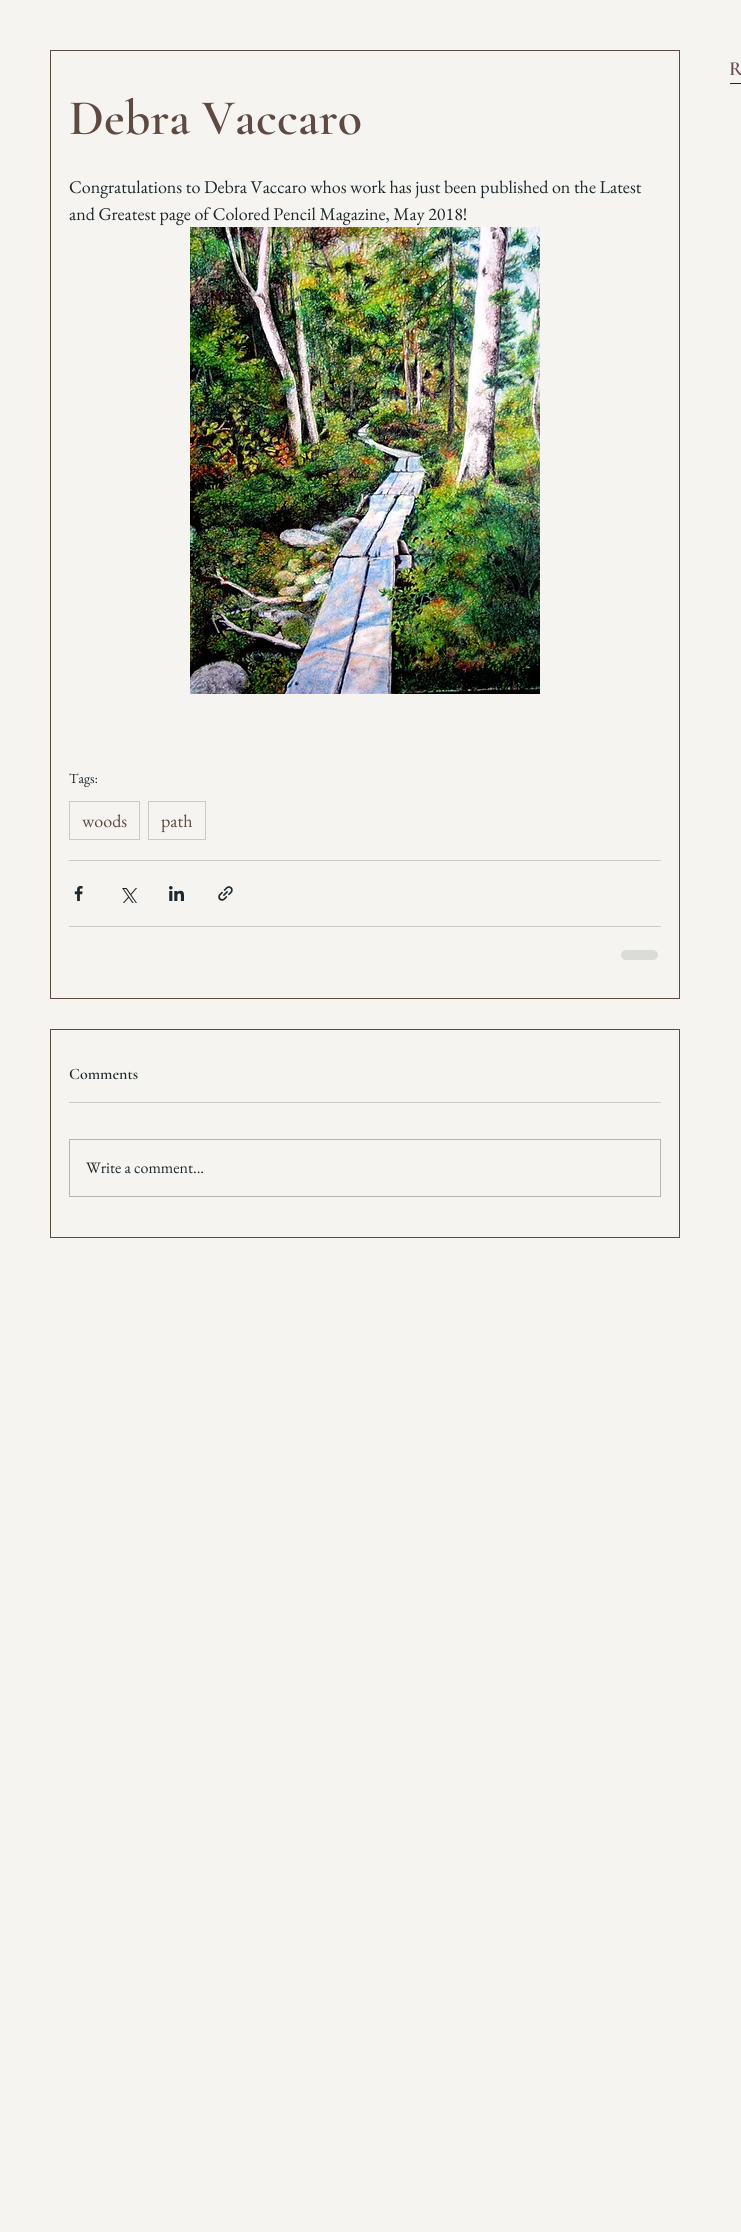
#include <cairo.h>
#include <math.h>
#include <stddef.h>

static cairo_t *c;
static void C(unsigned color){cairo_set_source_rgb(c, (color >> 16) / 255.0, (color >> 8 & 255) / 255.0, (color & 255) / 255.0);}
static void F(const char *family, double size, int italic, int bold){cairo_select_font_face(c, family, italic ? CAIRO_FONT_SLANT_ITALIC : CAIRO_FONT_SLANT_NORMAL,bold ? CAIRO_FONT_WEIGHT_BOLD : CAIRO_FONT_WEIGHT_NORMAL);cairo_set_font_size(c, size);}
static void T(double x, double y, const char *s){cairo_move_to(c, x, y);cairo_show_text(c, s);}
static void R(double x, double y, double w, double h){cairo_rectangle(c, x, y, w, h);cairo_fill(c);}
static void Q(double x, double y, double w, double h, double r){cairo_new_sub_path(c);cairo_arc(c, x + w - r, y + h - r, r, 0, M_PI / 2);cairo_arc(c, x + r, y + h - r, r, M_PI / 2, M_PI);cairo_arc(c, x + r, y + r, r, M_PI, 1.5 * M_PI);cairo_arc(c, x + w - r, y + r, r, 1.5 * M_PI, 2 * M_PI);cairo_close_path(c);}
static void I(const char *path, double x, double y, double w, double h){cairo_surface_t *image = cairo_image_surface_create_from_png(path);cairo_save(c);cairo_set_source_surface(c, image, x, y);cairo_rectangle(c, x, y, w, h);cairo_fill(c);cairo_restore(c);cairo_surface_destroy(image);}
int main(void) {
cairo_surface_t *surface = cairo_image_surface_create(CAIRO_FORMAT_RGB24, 741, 2232);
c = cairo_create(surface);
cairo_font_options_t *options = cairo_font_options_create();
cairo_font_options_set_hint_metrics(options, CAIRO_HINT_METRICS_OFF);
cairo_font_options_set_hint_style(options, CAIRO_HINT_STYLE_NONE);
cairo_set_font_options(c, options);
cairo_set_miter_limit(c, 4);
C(0xf5f4f0);
cairo_paint(c);
F("Cormorant Garamond SemiBold",20,0,0);
C(0x694c50);
T(729,75,"R");
C(0x232229);
R(730,83,11,1);
cairo_rectangle(c,50.5,50.5,629,948);
C(0x5e4a40);
cairo_set_line_width(c,1);
cairo_stroke(c);
F("Cormorant Garamond SemiBold",50,0,0);
T(69,134,"Debra Vaccaro");
F("EB Garamond",18,0,0);
C(0x1e282c);
T(69,193,"Congratulations to Debra Vaccaro whos work has just been published on the Latest");
T(69,220,"and Greatest page of Colored Pencil Magazine, May 2018!");
I("1.png",190,227,350,467);
F("EB Garamond",14,0,0);
T(69,783,"Tags:");
cairo_rectangle(c,69.5,801.5,70,38);
C(0xcbcac8);
cairo_stroke(c);
F("EB Garamond",18,0,0);
C(0x5e4a40);
T(82,827,"woods");
cairo_rectangle(c,148.5,801.5,57,38);
C(0xcbcac8);
cairo_stroke(c);
C(0x5e4a40);
T(161,827,"path");
C(0xcacbc9);
R(69,860,592,1);
I("2.png",74,886,9,15);
I("3.png",122,888,15,15);
I("4.png",169,886,15,15);
I("5.png",218,886,15,15);
R(69,926,592,1);
C(0xdbdcd8);
Q(621,950,37,10,5);
cairo_fill(c);
cairo_rectangle(c,50.5,1029.5,629,208);
C(0x5e4a40);
cairo_stroke(c);
F("Cormorant Garamond SemiBold",16,0,0);
C(0x1e282c);
T(69,1079,"Comments");
C(0xcacbc9);
R(69,1102,592,1);
cairo_rectangle(c,69.5,1139.5,591,57);
C(0xb6b5b4);
cairo_stroke(c);
F("EB Garamond",16,0,0);
C(0x1e282c);
T(86,1173,"Write a comment...");
cairo_surface_write_to_png(surface, "o.png");
cairo_font_options_destroy(options);
cairo_destroy(c);
cairo_surface_destroy(surface);
return 0;
}
